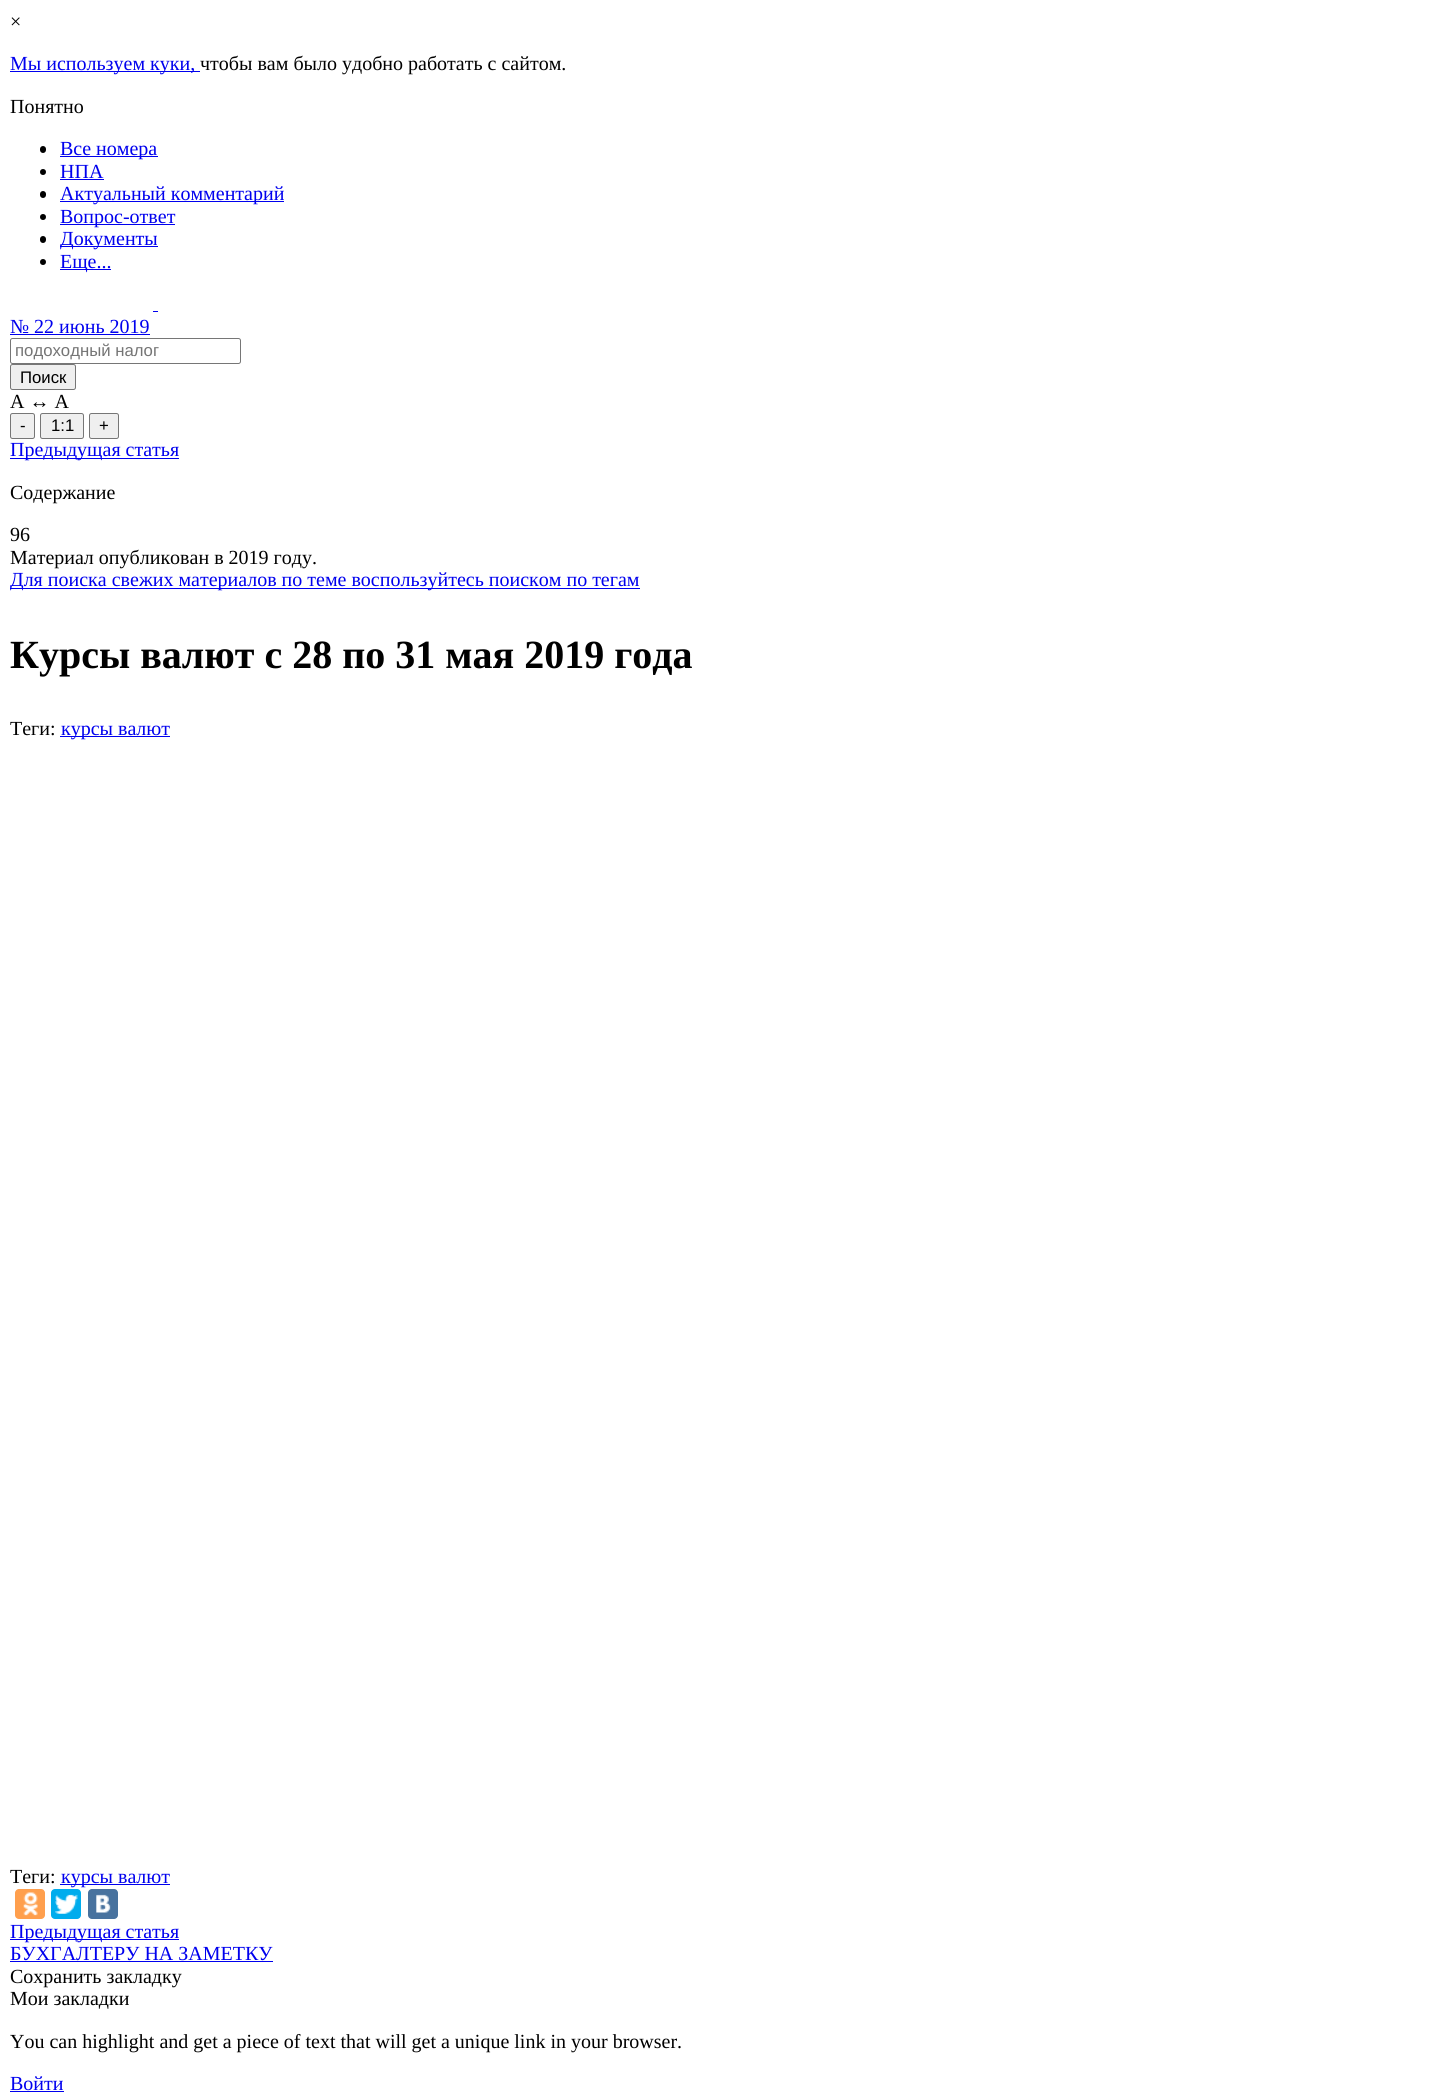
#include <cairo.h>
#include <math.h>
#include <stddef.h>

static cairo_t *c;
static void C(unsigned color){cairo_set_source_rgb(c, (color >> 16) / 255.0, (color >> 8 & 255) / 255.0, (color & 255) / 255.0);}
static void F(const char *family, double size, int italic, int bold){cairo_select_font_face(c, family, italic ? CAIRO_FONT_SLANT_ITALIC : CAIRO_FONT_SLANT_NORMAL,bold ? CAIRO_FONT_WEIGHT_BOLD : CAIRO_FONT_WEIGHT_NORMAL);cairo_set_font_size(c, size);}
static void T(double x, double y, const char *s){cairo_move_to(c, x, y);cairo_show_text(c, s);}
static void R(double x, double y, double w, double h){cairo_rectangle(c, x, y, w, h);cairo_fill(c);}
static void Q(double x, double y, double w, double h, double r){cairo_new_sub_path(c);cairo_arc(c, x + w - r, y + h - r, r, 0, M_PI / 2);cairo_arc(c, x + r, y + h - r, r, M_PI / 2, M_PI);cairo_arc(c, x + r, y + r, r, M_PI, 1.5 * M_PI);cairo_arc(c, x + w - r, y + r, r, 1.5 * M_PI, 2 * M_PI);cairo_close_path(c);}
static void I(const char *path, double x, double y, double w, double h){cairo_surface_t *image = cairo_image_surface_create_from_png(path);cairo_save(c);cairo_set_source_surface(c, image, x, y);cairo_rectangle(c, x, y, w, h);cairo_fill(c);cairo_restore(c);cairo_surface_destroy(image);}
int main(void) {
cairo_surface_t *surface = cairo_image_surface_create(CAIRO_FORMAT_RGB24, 1442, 2096);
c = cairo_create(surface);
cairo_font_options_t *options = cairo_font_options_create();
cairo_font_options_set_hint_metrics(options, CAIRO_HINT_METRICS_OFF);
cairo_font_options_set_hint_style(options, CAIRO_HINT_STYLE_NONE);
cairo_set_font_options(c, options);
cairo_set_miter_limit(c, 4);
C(0xffffff);
cairo_paint(c);
F("Liberation Serif",20,0,0);
C(0x000000);
T(10,28,"×");
C(0x0000ee);
R(10,71,190,1);
T(10,70,"Мы используем куки,");
C(0x000000);
T(200,70,"чтобы вам было удобно работать с сайтом.");
T(10,113,"Понятно");
Q(40,146,6,7,3);
cairo_fill(c);
C(0x0000ee);
R(60,156,98,1);
T(60,155,"Все номера");
C(0x000000);
cairo_new_path(c);
cairo_arc(c,43,172,3,0,2 * M_PI);
cairo_fill(c);
C(0x0000ee);
T(60,178,"НПА");
R(60,179,44,1);
C(0x000000);
Q(40,191,6,7,3);
cairo_fill(c);
C(0x0000ee);
R(60,201,224,1);
T(60,200,"Актуальный комментарий");
C(0x000000);
cairo_new_path(c);
cairo_arc(c,43,217,3,0,2 * M_PI);
cairo_fill(c);
C(0x0000ee);
R(60,224,115,1);
T(60,223,"Вопрос-ответ");
C(0x000000);
Q(40,236,6,7,3);
cairo_fill(c);
C(0x0000ee);
R(60,246,98,1);
T(60,245,"Документы");
C(0x000000);
cairo_new_path(c);
cairo_arc(c,43,262,3,0,2 * M_PI);
cairo_fill(c);
C(0x0000ee);
R(60,269,51,1);
T(60,268,"Еще...");
R(153,311,5,1);
T(10,333,"№ 22 июнь 2019");
R(10,334,140,1);
Q(10.5,338.5,230,25,2);
C(0x767676);
cairo_set_line_width(c,1);
cairo_stroke(c);
F("Liberation Sans",16.75,0,0);
C(0x757575);
T(15,356,"подоходный налог");
C(0xefefef);
Q(10.5,364.5,65,25,2);
cairo_fill_preserve(c);
C(0x767676);
cairo_stroke(c);
C(0x000000);
T(20,383,"Поиск");
F("Liberation Serif",20,0,0);
T(10,408,"A ↔ A");
C(0xefefef);
Q(10.5,413.5,24,25,2);
cairo_fill_preserve(c);
C(0x767676);
cairo_stroke(c);
F("Liberation Sans",16.75,0,0);
C(0x000000);
T(20,431,"-");
C(0xefefef);
Q(40.5,413.5,43,25,2);
cairo_fill_preserve(c);
C(0x767676);
cairo_stroke(c);
C(0x000000);
T(51,431,"1:1");
C(0xefefef);
Q(89.5,413.5,29,25,2);
cairo_fill_preserve(c);
C(0x767676);
cairo_stroke(c);
C(0x000000);
T(99,431,"+");
C(0x0000ee);
R(10,458,169,1);
F("Liberation Serif",20,0,0);
T(10,456,"Предыдущая статья");
C(0x000000);
T(10,499,"Содержание");
T(10,541,"96");
T(10,564,"Материал опубликован в 2019 году.");
C(0x0000ee);
R(10,588,630,1);
T(10,586,"Для поиска свежих материалов по теме воспользуйтесь поиском по тегам");
F("Liberation Serif",40,0,1);
C(0x000000);
T(10,668,"Курсы валют с 28 по 31 мая 2019 года");
F("Liberation Serif",20,0,0);
T(10,735,"Теги:");
C(0x0000ee);
R(60,736,110,1);
T(61,735,"курсы валют");
C(0x000000);
T(10,1883,"Теги:");
C(0x0000ee);
R(60,1884,110,1);
T(61,1883,"курсы валют");
C(0xff9f4d);
Q(15,1889,30,30,4);
cairo_fill(c);
I("1.png",23,1892,15,24);
C(0x00aced);
Q(51,1889,30,30,4);
cairo_fill(c);
I("2.png",55,1894,23,20);
C(0x48729e);
Q(88,1889,30,30,4);
cairo_fill(c);
I("3.png",96,1894,15,19);
C(0x0000ee);
R(10,1939,169,1);
T(10,1938,"Предыдущая статья");
T(10,1960,"БУХГАЛТЕРУ НА ЗАМЕТКУ");
R(10,1961,263,1);
C(0x000000);
T(10,1983,"Сохранить закладку");
T(10,2005,"Мои закладки");
T(10,2048,"You can highlight and get a piece of text that will get a unique link in your browser.");
C(0x0000ee);
T(10,2090,"Войти");
R(10,2091,54,1);
cairo_surface_write_to_png(surface, "o.png");
cairo_font_options_destroy(options);
cairo_destroy(c);
cairo_surface_destroy(surface);
return 0;
}
